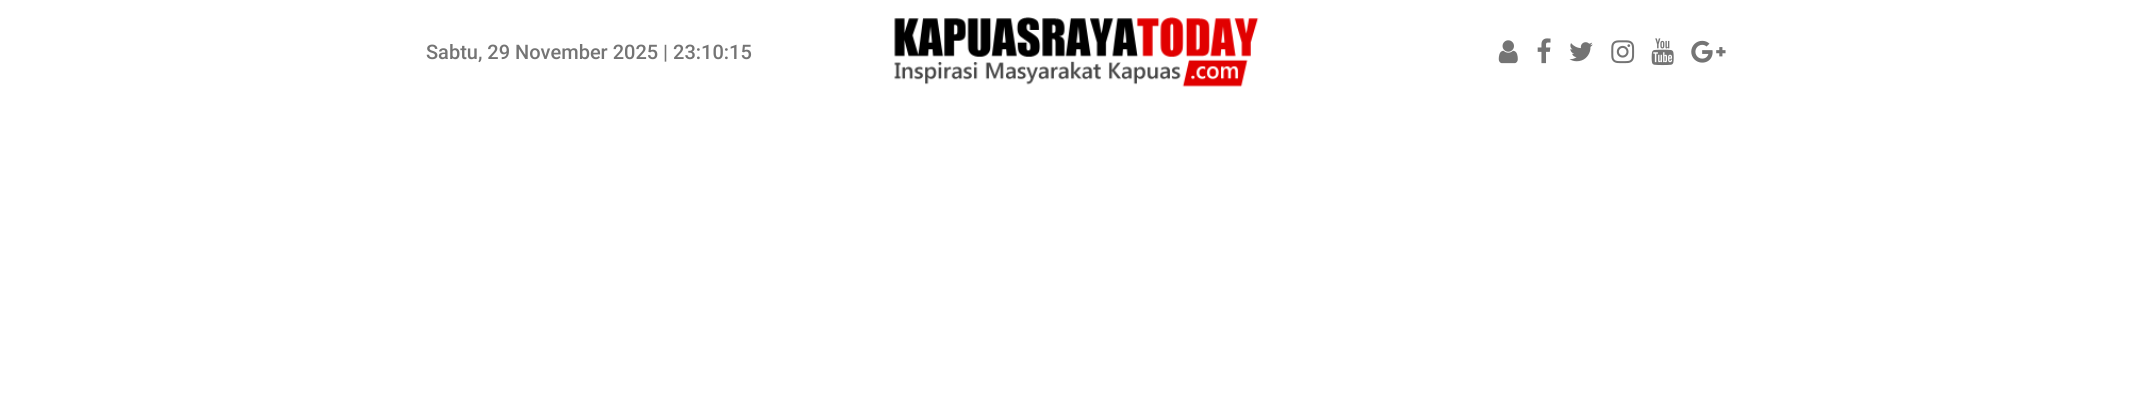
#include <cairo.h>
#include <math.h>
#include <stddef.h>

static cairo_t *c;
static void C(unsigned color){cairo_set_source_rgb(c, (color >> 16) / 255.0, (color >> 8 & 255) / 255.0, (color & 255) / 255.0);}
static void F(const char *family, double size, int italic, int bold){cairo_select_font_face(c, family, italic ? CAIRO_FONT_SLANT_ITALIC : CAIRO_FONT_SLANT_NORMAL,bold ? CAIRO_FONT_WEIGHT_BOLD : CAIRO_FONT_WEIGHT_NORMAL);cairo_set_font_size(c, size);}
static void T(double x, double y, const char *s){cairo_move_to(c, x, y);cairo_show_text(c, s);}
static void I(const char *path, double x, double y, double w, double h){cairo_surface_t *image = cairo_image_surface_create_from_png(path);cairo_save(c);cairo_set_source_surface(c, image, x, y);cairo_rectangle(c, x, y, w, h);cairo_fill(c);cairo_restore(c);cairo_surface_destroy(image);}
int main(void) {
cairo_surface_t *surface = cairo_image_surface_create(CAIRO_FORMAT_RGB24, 2151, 400);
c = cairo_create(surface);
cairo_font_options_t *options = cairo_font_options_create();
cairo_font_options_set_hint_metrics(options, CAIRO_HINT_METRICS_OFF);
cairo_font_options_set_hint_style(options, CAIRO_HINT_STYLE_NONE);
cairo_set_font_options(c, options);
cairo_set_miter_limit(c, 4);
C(0xffffff);
cairo_paint(c);
F("Roboto Medium",20,0,0);
C(0x747474);
T(426,59,"Sabtu, 29 November 2025 | 23:10:15");
I("1.png",894,17,365,70);
I("2.png",1498,40,20,24);
I("3.png",1537,38,14,26);
I("4.png",1569,42,24,20);
I("5.png",1611,40,24,24);
I("6.png",1651,38,23,28);
I("7.png",1691,40,35,23);
cairo_surface_write_to_png(surface, "o.png");
cairo_font_options_destroy(options);
cairo_destroy(c);
cairo_surface_destroy(surface);
return 0;
}
